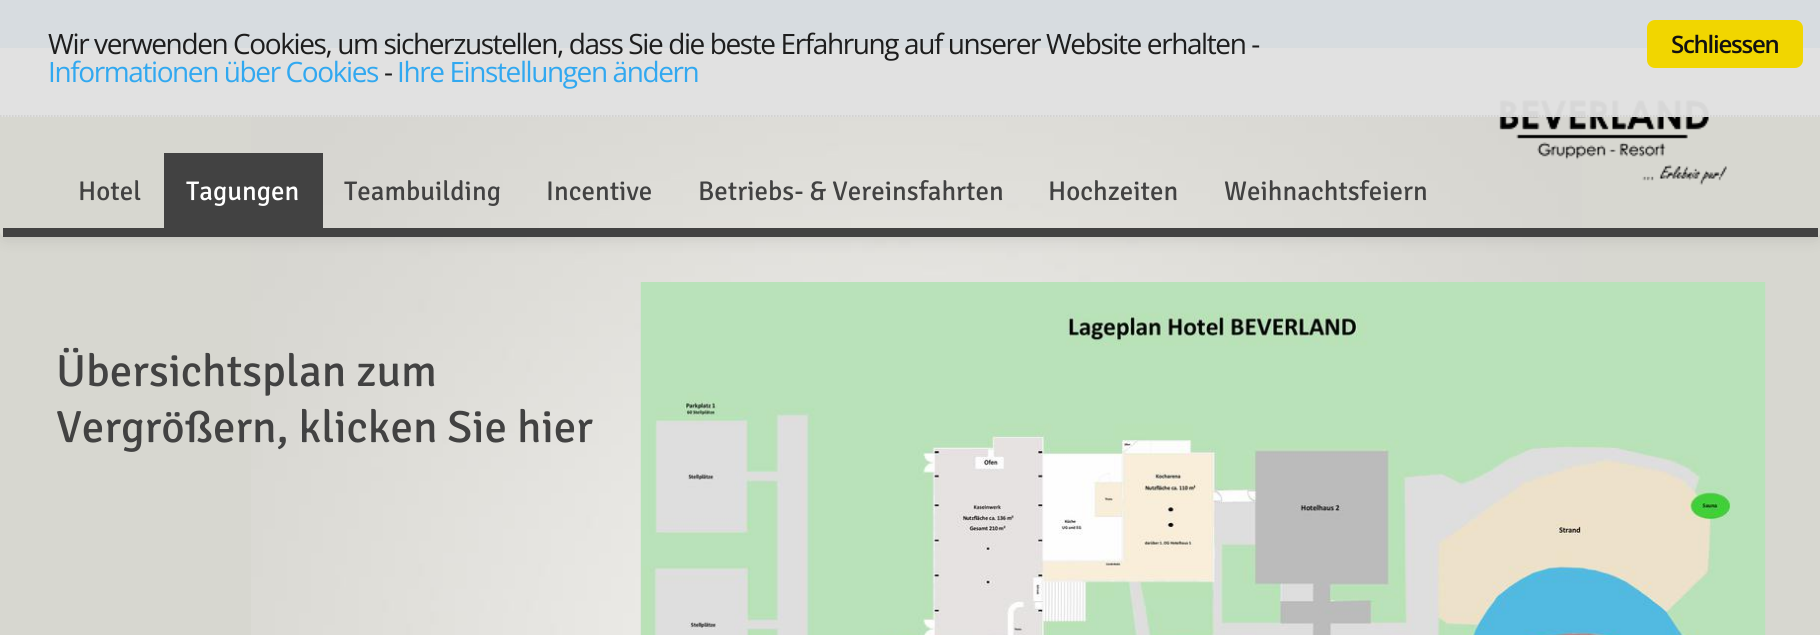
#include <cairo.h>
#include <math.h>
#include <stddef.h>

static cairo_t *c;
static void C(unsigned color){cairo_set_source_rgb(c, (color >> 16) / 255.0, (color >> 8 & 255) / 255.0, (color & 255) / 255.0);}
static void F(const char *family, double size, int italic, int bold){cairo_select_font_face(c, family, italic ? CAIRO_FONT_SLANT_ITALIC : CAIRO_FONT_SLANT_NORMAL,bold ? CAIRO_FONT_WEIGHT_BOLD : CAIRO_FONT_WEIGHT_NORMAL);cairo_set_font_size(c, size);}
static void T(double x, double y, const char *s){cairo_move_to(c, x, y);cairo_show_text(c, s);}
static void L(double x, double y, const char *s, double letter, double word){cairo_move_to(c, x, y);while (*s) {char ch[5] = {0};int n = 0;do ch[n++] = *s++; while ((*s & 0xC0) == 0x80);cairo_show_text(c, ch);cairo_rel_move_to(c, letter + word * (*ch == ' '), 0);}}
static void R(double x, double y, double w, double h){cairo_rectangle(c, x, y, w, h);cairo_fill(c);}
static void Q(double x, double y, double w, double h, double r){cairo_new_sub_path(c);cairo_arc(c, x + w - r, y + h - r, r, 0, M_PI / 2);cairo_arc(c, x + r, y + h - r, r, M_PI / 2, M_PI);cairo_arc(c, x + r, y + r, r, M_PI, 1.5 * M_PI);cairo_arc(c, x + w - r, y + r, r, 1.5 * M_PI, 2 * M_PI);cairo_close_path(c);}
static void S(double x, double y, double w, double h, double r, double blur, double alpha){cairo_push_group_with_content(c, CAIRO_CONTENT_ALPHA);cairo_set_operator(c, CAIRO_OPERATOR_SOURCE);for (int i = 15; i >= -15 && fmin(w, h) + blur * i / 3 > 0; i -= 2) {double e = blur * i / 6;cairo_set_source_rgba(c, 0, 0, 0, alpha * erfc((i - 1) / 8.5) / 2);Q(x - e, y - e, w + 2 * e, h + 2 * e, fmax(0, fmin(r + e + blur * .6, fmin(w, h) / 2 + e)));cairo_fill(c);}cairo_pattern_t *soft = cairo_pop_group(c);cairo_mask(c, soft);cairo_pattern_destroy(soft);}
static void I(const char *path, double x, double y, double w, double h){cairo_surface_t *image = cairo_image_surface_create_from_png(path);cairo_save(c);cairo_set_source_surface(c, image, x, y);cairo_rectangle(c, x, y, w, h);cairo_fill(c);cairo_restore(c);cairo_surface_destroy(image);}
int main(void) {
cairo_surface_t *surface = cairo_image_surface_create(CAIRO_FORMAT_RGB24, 1820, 635);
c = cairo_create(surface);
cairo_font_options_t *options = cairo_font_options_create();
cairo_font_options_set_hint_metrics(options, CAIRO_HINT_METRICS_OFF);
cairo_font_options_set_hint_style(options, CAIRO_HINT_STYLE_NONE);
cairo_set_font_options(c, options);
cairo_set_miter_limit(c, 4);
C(0xd7d7d0);
cairo_paint(c);
I("1.png",251,48,1331,587);
C(0x006fb7);
R(0,0,1820,48);
cairo_save(c);
cairo_set_fill_rule(c,CAIRO_FILL_RULE_EVEN_ODD);
cairo_new_path(c);
cairo_move_to(c,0,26);
cairo_line_to(c,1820,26);
cairo_line_to(c,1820,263);
cairo_line_to(c,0,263);
cairo_close_path(c);
cairo_move_to(c,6,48);
cairo_line_to(c,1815,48);
cairo_curve_to(c,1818.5,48,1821,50.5,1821,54);
cairo_line_to(c,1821,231);
cairo_curve_to(c,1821,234.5,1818.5,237,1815,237);
cairo_line_to(c,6,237);
cairo_curve_to(c,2.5,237,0,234.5,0,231);
cairo_line_to(c,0,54);
cairo_curve_to(c,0,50.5,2.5,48,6,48);
cairo_close_path(c);
cairo_clip(c);
C(0x000000);
S(0,50,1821,189,6,7.5,.1);
cairo_restore(c);
I("2.png",1499,100,228,85);
cairo_set_source_rgba(c,0.886,0.886,0.886,0.95);
R(0,0,1820,117);
cairo_new_path(c);
cairo_move_to(c,0,116);
cairo_line_to(c,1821,116);
C(0xcccccc);
cairo_set_line_width(c,1.5);
cairo_set_dash(c,(double[]){1.5,1.5},2,0);
cairo_stroke(c);
F("Open Sans",28,0,0);
C(0x1d1d1d);
L(48,54,"Wir verwenden Cookies, um sicherzustellen, dass Sie die beste Erfahrung auf unserer Website erhalten -",-1.4,0);
C(0x31a8f0);
L(48,82,"Informationen über Cookies",-1.4,0);
C(0x1d1d1d);
L(384,82,"-",-1.4,0);
C(0x31a8f0);
L(397,82,"Ihre Einstellungen ändern",-1.4,0);
C(0xf1d600);
Q(1647,20,156,48,8);
cairo_fill(c);
F("Open Sans SemiBold",24,0,0);
C(0x111111);
L(1671,53,"Schliessen",-1.25,0);
C(0x424242);
R(3,228,1815,9);
F("Signika Light",27,0,0);
T(78,200,"Hotel");
R(164,153,159,75);
C(0xffffff);
T(186,200,"Tagungen");
C(0x424242);
T(344,200,"Teambuilding");
T(546,200,"Incentive");
T(698,200,"Betriebs- & Vereinsfahrten");
T(1048,200,"Hochzeiten");
T(1224,200,"Weihnachtsfeiern");
F("Signika Light",45,0,0);
T(56,386,"Übersichtsplan zum");
T(56,442,"Vergrößern, klicken Sie hier");
I("3.png",640,282,1126,353);
cairo_surface_write_to_png(surface, "o.png");
cairo_font_options_destroy(options);
cairo_destroy(c);
cairo_surface_destroy(surface);
return 0;
}
